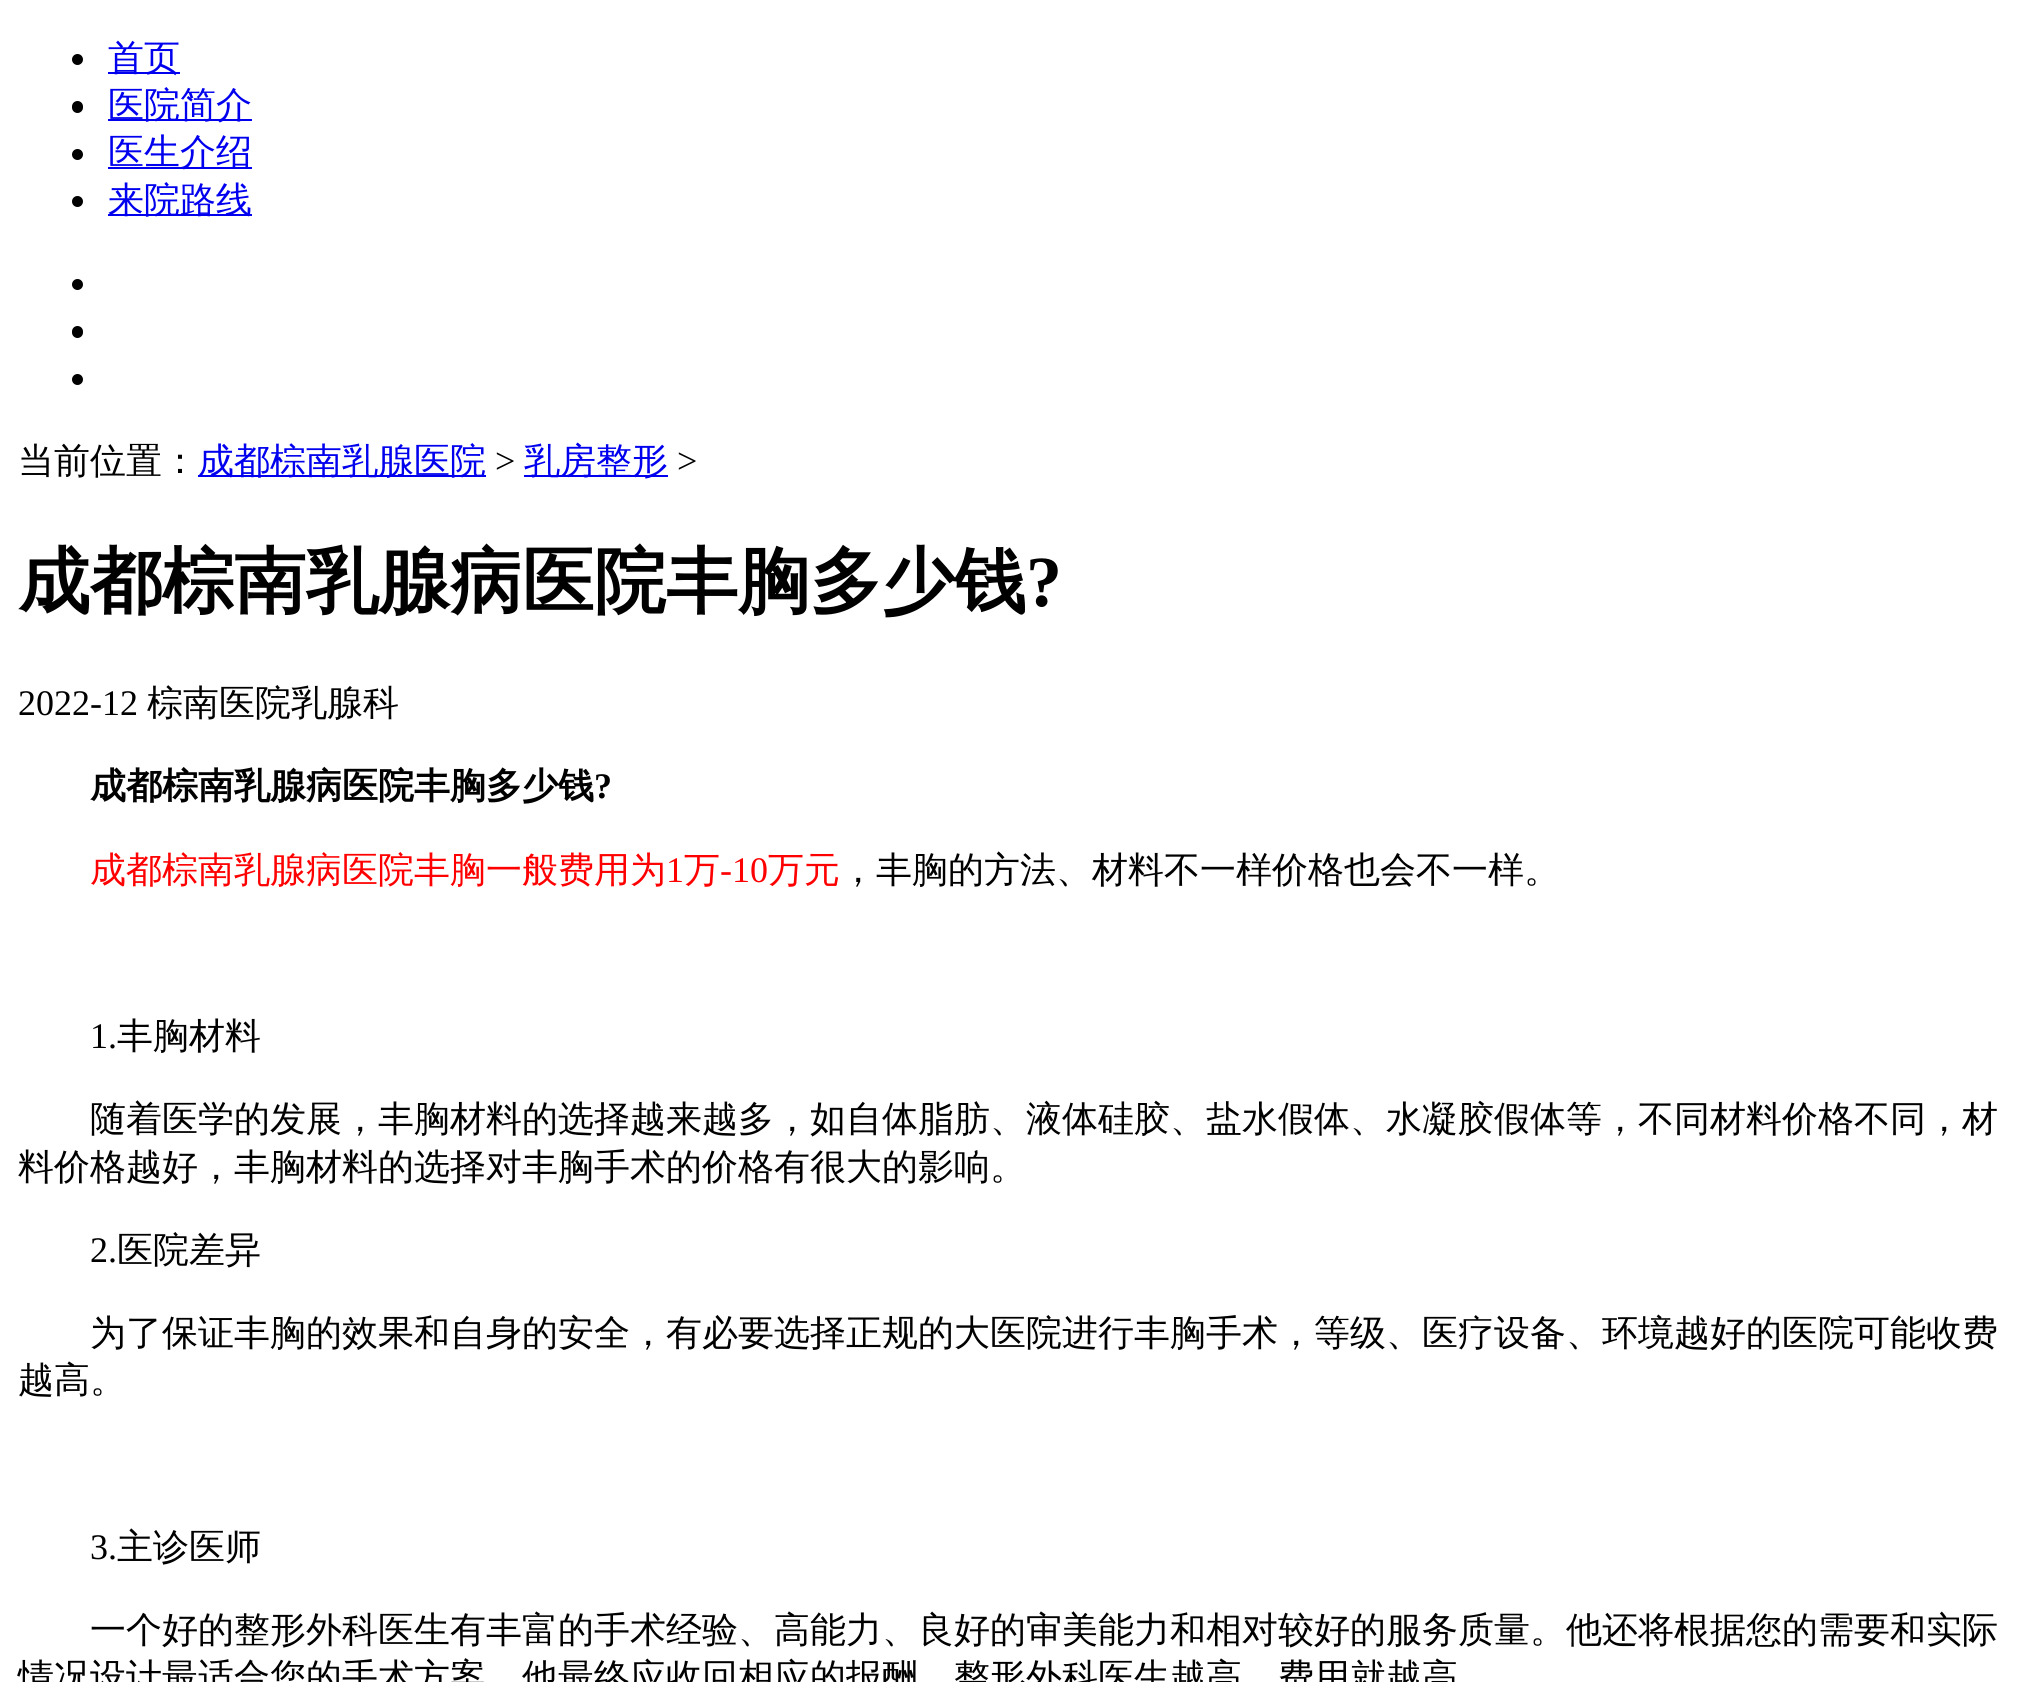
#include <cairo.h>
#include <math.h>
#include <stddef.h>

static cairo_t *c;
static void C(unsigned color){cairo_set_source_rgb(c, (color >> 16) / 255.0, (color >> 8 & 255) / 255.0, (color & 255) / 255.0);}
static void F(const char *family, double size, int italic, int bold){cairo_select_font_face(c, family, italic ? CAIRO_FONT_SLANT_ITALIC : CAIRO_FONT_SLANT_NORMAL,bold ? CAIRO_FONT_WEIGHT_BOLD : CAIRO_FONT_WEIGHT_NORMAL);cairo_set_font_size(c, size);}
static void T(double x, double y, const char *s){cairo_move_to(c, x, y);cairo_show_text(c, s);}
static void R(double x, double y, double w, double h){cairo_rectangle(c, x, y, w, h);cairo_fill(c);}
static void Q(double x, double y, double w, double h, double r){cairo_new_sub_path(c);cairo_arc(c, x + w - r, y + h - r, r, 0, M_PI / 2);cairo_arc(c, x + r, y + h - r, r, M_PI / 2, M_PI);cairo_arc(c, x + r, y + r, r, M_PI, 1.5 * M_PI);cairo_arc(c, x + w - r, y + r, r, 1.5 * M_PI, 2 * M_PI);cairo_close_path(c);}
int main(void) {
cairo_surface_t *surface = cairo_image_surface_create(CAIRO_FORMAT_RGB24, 2032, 1682);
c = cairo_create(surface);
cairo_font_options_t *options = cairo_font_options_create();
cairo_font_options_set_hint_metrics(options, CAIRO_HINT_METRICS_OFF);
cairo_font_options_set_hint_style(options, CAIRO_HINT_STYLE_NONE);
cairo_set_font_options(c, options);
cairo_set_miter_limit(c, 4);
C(0xffffff);
cairo_paint(c);
C(0x000000);
cairo_arc(c,77.5,59.5,5.5,0,2 * M_PI);
cairo_fill(c);
C(0x0000ee);
R(108,72,72,2);
F("WenQuanYi Zen Hei Medium",36,0,0);
T(108,70,"首页");
C(0x000000);
Q(72,101,11,12,5.5);
cairo_fill(c);
C(0x0000ee);
R(108,119,144,2);
T(108,117,"医院简介");
C(0x000000);
cairo_new_path(c);
cairo_arc(c,77.5,154.5,5.5,0,2 * M_PI);
cairo_fill(c);
C(0x0000ee);
R(108,167,144,2);
T(108,164,"医生介绍");
C(0x000000);
cairo_new_path(c);
cairo_arc(c,77.5,201.5,5.5,0,2 * M_PI);
cairo_fill(c);
C(0x0000ee);
R(108,214,144,2);
T(108,212,"来院路线");
C(0x000000);
cairo_new_path(c);
cairo_arc(c,77.5,284.5,5.5,0,2 * M_PI);
cairo_fill(c);
Q(72,326,11,12,5.5);
cairo_fill(c);
cairo_arc(c,77.5,379.5,5.5,0,2 * M_PI);
cairo_fill(c);
T(18,473,"当前位置：");
C(0x0000ee);
R(198,475,288,2);
T(198,473,"成都棕南乳腺医院");
F("Liberation Serif",36,0,0);
C(0x000000);
T(495,473,">");
C(0x0000ee);
R(524,475,144,2);
F("WenQuanYi Zen Hei Medium",36,0,0);
T(524,473,"乳房整形");
F("Liberation Serif",36,0,0);
C(0x000000);
T(677,473,">");
F("WenQuanYi Zen Hei",72,0,1);
T(18,606,"成都棕南乳腺病医院丰胸多少钱");
F("Liberation Serif",72,0,1);
T(1026,606,"?");
F("Liberation Serif",36,0,0);
T(18,715,"2022-12");
F("WenQuanYi Zen Hei Medium",36,0,0);
T(147,715,"棕南医院乳腺科");
F("WenQuanYi Zen Hei",36,0,1);
T(90,798,"成都棕南乳腺病医院丰胸多少钱");
F("Liberation Serif",36,0,1);
T(594,798,"?");
F("WenQuanYi Zen Hei Medium",36,0,0);
C(0xff0000);
T(90,882,"成都棕南乳腺病医院丰胸一般费用为");
F("Liberation Serif",36,0,0);
T(666,882,"1");
F("WenQuanYi Zen Hei Medium",36,0,0);
T(684,882,"万");
F("Liberation Serif",36,0,0);
T(720,882,"-10");
F("WenQuanYi Zen Hei Medium",36,0,0);
T(768,882,"万元");
C(0x000000);
T(840,882,"，丰胸的方法、材料不一样价格也会不一样。");
F("Liberation Serif",36,0,0);
T(90,1048,"1.");
F("WenQuanYi Zen Hei Medium",36,0,0);
T(117,1048,"丰胸材料");
T(90,1131,"随着医学的发展，丰胸材料的选择越来越多，如自体脂肪、液体硅胶、盐水假体、水凝胶假体等，不同材料价格不同，材");
T(18,1179,"料价格越好，丰胸材料的选择对丰胸手术的价格有很大的影响。");
F("Liberation Serif",36,0,0);
T(90,1262,"2.");
F("WenQuanYi Zen Hei Medium",36,0,0);
T(117,1262,"医院差异");
T(90,1345,"为了保证丰胸的效果和自身的安全，有必要选择正规的大医院进行丰胸手术，等级、医疗设备、环境越好的医院可能收费");
T(18,1392,"越高。");
F("Liberation Serif",36,0,0);
T(90,1559,"3.");
F("WenQuanYi Zen Hei Medium",36,0,0);
T(117,1559,"主诊医师");
T(90,1642,"一个好的整形外科医生有丰富的手术经验、高能力、良好的审美能力和相对较好的服务质量。他还将根据您的需要和实际");
T(18,1689,"情况设计最适合您的手术方案，他最终应收回相应的报酬。整形外科医生越高，费用就越高");
cairo_surface_write_to_png(surface, "o.png");
cairo_font_options_destroy(options);
cairo_destroy(c);
cairo_surface_destroy(surface);
return 0;
}
